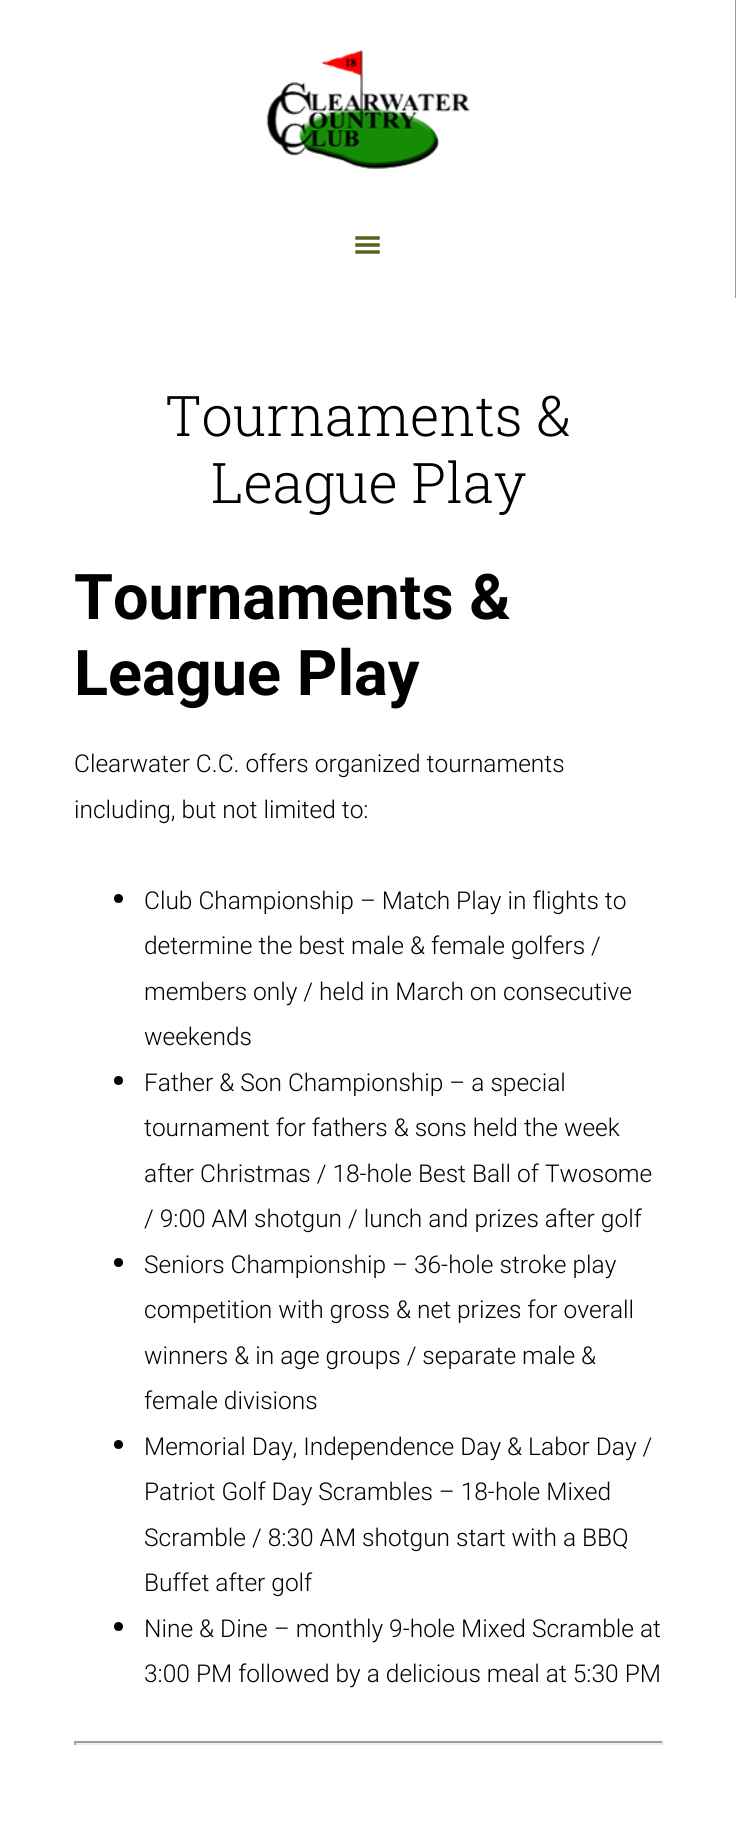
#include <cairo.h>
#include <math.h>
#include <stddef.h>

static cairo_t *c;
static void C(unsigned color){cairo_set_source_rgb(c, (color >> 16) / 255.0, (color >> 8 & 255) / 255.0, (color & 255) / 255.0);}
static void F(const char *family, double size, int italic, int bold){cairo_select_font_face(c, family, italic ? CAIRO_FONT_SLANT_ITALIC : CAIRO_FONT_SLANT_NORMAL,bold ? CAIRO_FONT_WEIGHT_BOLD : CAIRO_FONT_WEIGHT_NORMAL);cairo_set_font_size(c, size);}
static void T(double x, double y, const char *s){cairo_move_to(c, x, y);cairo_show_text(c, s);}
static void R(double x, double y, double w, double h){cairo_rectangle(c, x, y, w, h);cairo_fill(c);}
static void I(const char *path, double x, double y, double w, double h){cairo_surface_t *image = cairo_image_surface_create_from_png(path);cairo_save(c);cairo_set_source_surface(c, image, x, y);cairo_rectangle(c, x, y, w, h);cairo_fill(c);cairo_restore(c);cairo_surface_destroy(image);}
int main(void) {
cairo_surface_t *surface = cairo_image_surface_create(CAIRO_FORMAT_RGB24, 736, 1845);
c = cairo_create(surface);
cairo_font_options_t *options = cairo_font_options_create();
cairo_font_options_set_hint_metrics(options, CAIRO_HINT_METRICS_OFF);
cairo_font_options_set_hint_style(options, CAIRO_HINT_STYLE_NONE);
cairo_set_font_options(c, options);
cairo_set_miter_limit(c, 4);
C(0xffffff);
cairo_paint(c);
C(0x999999);
R(735,0,1,298);
I("1.png",266,49,204,120);
I("2.png",355,236,25,18);
F("Roboto Slab Light",56,0,0);
C(0x000000);
T(165,436,"Tournaments &");
T(211,503,"League Play");
F("Roboto",63,0,1);
T(74,619,"Tournaments &");
T(74,695,"League Play");
F("Roboto Light",24.5,0,0);
T(74,772,"Clearwater C.C. offers organized tournaments");
T(74,818,"including, but not limited to:");
cairo_new_path(c);
cairo_arc(c,118.5,898.5,4.5,0,2 * M_PI);
cairo_fill(c);
T(144,909,"Club Championship – Match Play in flights to");
T(144,954,"determine the best male & female golfers /");
T(144,1000,"members only / held in March on consecutive");
T(144,1045,"weekends");
cairo_new_path(c);
cairo_arc(c,118.5,1080.5,4.5,0,2 * M_PI);
cairo_fill(c);
T(144,1091,"Father & Son Championship – a special");
T(144,1136,"tournament for fathers & sons held the week");
T(144,1182,"after Christmas / 18-hole Best Ball of Twosome");
T(144,1227,"/ 9:00 AM shotgun / lunch and prizes after golf");
cairo_new_path(c);
cairo_arc(c,118.5,1262.5,4.5,0,2 * M_PI);
cairo_fill(c);
T(144,1273,"Seniors Championship – 36-hole stroke play");
T(144,1318,"competition with gross & net prizes for overall");
T(144,1364,"winners & in age groups / separate male &");
T(144,1409,"female divisions");
cairo_new_path(c);
cairo_arc(c,118.5,1444.5,4.5,0,2 * M_PI);
cairo_fill(c);
T(144,1455,"Memorial Day, Independence Day & Labor Day /");
T(144,1500,"Patriot Golf Day Scrambles – 18-hole Mixed");
T(144,1546,"Scramble / 8:30 AM shotgun start with a BBQ");
T(144,1591,"Buffet after golf");
cairo_new_path(c);
cairo_arc(c,118.5,1626.5,4.5,0,2 * M_PI);
cairo_fill(c);
T(144,1637,"Nine & Dine – monthly 9-hole Mixed Scramble at");
T(144,1682,"3:00 PM followed by a delicious meal at 5:30 PM");
C(0x9f9f9f);
R(74,1741,589,2);
C(0xeeeeee);
R(662,1741,2,4);
R(74,1743,589,2);
C(0x9f9f9f);
R(74,1741,2,4);
cairo_surface_write_to_png(surface, "o.png");
cairo_font_options_destroy(options);
cairo_destroy(c);
cairo_surface_destroy(surface);
return 0;
}
